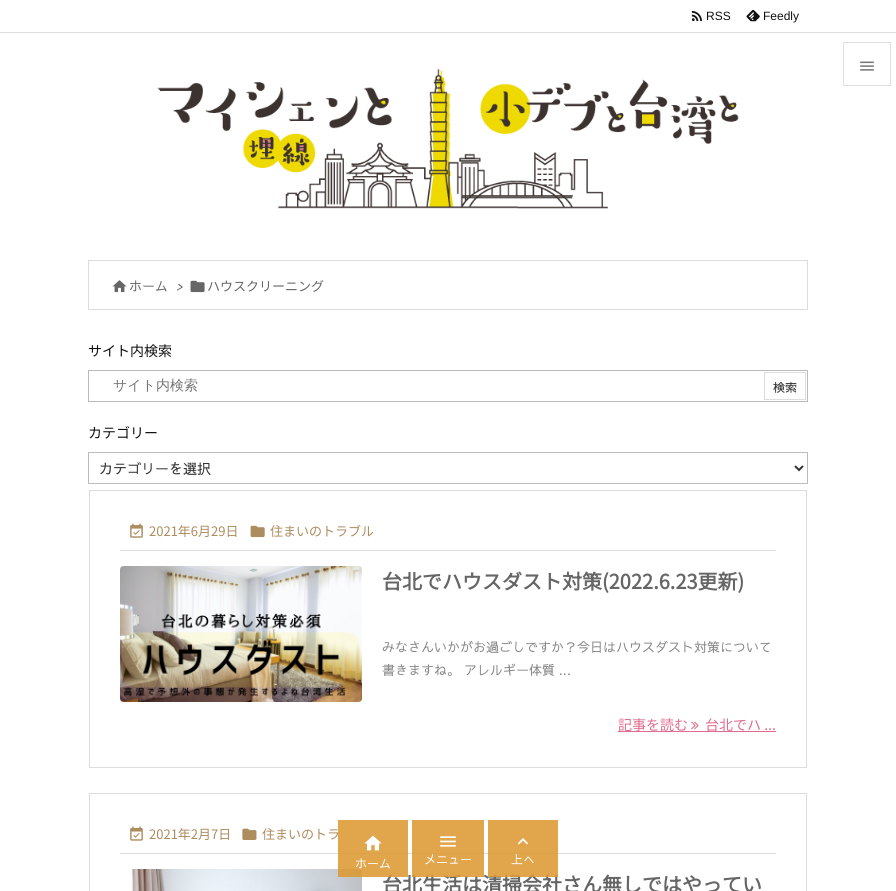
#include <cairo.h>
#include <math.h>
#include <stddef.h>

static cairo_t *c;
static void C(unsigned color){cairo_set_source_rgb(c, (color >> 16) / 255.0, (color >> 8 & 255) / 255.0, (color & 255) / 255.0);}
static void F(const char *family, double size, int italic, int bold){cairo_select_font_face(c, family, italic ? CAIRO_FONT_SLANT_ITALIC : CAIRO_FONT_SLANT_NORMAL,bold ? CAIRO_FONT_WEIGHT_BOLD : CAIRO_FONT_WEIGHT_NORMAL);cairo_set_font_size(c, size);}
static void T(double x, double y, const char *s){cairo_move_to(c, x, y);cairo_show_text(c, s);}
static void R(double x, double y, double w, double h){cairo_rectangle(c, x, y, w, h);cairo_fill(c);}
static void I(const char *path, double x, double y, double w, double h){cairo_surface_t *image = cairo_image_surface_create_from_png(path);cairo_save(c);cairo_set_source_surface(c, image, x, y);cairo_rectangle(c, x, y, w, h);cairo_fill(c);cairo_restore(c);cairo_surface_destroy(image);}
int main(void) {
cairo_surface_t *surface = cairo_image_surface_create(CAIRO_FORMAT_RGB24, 896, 891);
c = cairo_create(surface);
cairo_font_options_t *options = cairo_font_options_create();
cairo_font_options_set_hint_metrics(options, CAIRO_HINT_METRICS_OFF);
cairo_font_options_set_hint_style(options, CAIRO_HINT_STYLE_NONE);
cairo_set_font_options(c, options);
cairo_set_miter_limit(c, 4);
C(0xffffff);
cairo_paint(c);
I("1.png",691,11,11,11);
F("Liberation Sans",12,0,0);
C(0x111111);
T(706,20,"RSS");
I("2.png",746,9,14,13);
T(763,20,"Feedly");
C(0xdddddd);
R(0,32,896,1);
cairo_rectangle(c,843.5,42.5,47,43);
C(0xe0e0e0);
cairo_set_line_width(c,1);
cairo_stroke(c);
I("3.png",860,61,14,10);
I("4.png",157,69,582,140);
cairo_rectangle(c,88.5,260.5,719,49);
C(0xdddddd);
cairo_stroke(c);
I("5.png",112,280,15,13);
F("Sawarabi Gothic",13,0,0);
C(0x666666);
T(129,291,"ホーム");
F("Sawarabi Gothic",13,1,0);
T(176,291,">");
I("6.png",190,280,15,13);
F("Noto Sans JP Thin",13,0,0);
T(207,291,"ハウスクリーニング");
F("Noto Sans JP Thin",14,0,0);
C(0x111111);
T(88,356,"サイト内検索");
cairo_rectangle(c,88.5,370.5,719,31);
C(0xbbbbbb);
cairo_stroke(c);
F("WenQuanYi Zen Hei Medium",14,0,0);
C(0x757575);
T(113,390,"サイト内検索");
cairo_rectangle(c,764.5,372.5,41,27);
C(0xdddddd);
cairo_stroke(c);
F("Sawarabi Gothic",12,0,0);
C(0x333333);
T(773,392,"検索");
F("Noto Sans JP Thin",14,0,0);
C(0x111111);
T(88,438,"カテゴリー");
cairo_rectangle(c,88.5,452.5,719,31);
C(0xbbbbbb);
cairo_stroke(c);
cairo_new_path(c);
cairo_move_to(c,795,466);
cairo_line_to(c,799,470);
cairo_line_to(c,803,466);
C(0x333333);
cairo_set_line_width(c,2);
cairo_stroke(c);
F("Sawarabi Gothic",14,0,0);
T(99,474,"カテゴリーを選択");
cairo_rectangle(c,89.5,490.5,717,277);
C(0xdddddd);
cairo_set_line_width(c,1);
cairo_stroke(c);
R(120,550,656,1);
I("7.png",130,523,13,15);
F("Noto Sans JP Thin",13,0,0);
C(0xad8c5e);
T(149,536,"2021年6月29日");
I("8.png",250,525,15,13);
T(270,536,"住まいのトラブル");
I("9.png",120,566,242,136);
F("Noto Sans JP",20,0,1);
C(0x666666);
T(382,589,"台北でハウスダスト対策(2022.6.23更新)");
F("Sawarabi Gothic",13,0,0);
C(0x888888);
T(382,652,"みなさんいかがお過ごしですか？今日はハウスダスト対策について");
T(382,675,"書きますね。 アレルギー体質 ...");
C(0xe16b8c);
R(618,731,158,1);
F("Noto Sans JP Thin",14,0,0);
T(618,730,"記事を読む");
I("10.png",691,721,8,9);
T(705,730,"台北でハ ...");
cairo_rectangle(c,89.5,793.5,717,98);
C(0xdddddd);
cairo_stroke(c);
R(120,853,656,1);
I("11.png",130,826,13,15);
F("Noto Sans JP Thin",13,0,0);
C(0xad8c5e);
T(149,839,"2021年2月7日");
I("12.png",242,828,15,12);
T(262,839,"住まいのトラ");
I("13.png",131,869,231,22);
F("Noto Sans JP",20,0,1);
C(0x666666);
T(382,892,"台北生活は清掃会社さん無しではやってい");
cairo_set_source_rgba(c,0.867,0.6,0.2,0.88);
R(338,820,70,57);
I("14.png",364,835,18,16);
F("Sawarabi Gothic",12,0,0);
C(0xffffff);
T(355,868,"ホーム");
cairo_set_source_rgba(c,0.867,0.6,0.2,0.88);
R(412,820,72,57);
I("15.png",440,836,16,11);
C(0xffffff);
T(424,864,"メニュー");
cairo_set_source_rgba(c,0.867,0.6,0.2,0.88);
R(488,820,70,57);
I("16.png",517,838,12,7);
C(0xffffff);
T(511,864,"上へ");
cairo_surface_write_to_png(surface, "o.png");
cairo_font_options_destroy(options);
cairo_destroy(c);
cairo_surface_destroy(surface);
return 0;
}
